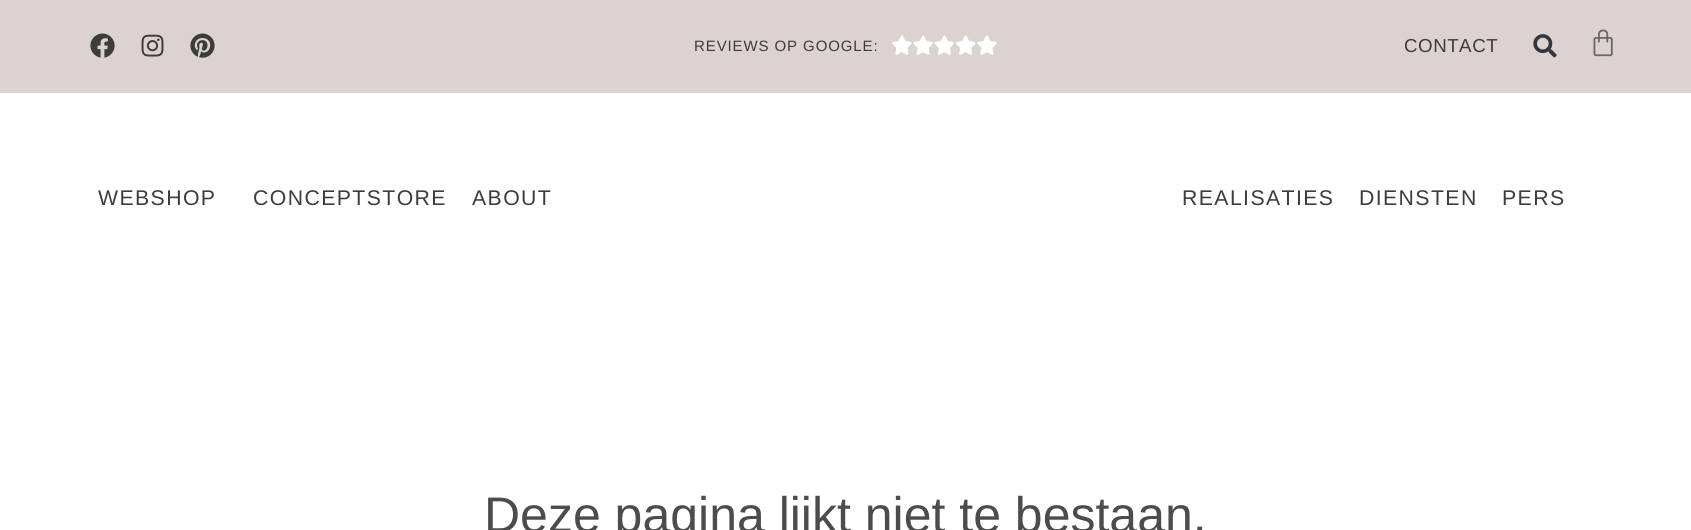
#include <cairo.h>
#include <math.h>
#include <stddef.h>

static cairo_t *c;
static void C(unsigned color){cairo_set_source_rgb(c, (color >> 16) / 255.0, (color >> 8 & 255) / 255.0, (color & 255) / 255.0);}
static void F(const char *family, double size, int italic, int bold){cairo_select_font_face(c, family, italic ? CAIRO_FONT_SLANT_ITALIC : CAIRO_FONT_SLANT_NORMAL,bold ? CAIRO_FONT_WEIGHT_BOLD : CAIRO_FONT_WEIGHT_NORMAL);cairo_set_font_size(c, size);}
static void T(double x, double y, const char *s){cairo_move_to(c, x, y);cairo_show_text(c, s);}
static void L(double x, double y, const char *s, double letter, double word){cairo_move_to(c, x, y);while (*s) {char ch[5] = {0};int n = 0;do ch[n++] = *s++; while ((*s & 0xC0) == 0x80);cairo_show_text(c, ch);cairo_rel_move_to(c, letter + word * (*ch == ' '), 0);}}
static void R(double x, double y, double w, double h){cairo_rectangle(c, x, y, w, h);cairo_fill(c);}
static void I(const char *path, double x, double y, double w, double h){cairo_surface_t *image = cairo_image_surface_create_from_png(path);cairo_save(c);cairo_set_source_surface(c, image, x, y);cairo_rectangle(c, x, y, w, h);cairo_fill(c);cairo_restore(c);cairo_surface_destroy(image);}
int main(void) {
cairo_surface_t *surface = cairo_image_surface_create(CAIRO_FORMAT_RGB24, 1691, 530);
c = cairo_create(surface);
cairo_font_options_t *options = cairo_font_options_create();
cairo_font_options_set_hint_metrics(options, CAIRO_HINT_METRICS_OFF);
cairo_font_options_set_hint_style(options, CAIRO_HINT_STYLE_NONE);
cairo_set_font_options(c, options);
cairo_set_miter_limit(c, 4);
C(0xffffff);
cairo_paint(c);
C(0xdcd2d0);
R(0,0,1691,93);
I("1.png",90,33,25,25);
I("2.png",141,34,23,23);
I("3.png",190,33,25,25);
F("Liberation Sans",15,0,0);
C(0x3c3c3c);
L(694,51,"REVIEWS OP GOOGLE:",.9,0);
I("4.png",892,35,20,20);
I("5.png",892,35,20,20);
I("6.png",913,35,20,20);
I("7.png",913,35,20,20);
I("8.png",934,35,20,20);
I("9.png",934,35,20,20);
I("10.png",956,35,20,20);
I("11.png",956,35,20,20);
I("4.png",977,35,20,20);
I("5.png",977,35,20,20);
F("Liberation Sans",18.75,0,0);
L(1404,52,"CONTACT",.5,0);
I("12.png",1533,34,24,24);
I("13.png",1593,29,20,28);
F("Liberation Sans",21.25,0,0);
L(98,205,"WEBSHOP",1.4,0);
L(253,205,"CONCEPTSTORE",1.4,0);
L(472,205,"ABOUT",1.4,0);
L(1182,205,"REALISATIES",1.4,0);
L(1359,205,"DIENSTEN",1.4,0);
L(1502,205,"PERS",1.4,0);
F("Liberation Sans",50,0,0);
C(0x4c4c4c);
T(484,532,"Deze pagina lijkt niet te bestaan.");
cairo_surface_write_to_png(surface, "o.png");
cairo_font_options_destroy(options);
cairo_destroy(c);
cairo_surface_destroy(surface);
return 0;
}
